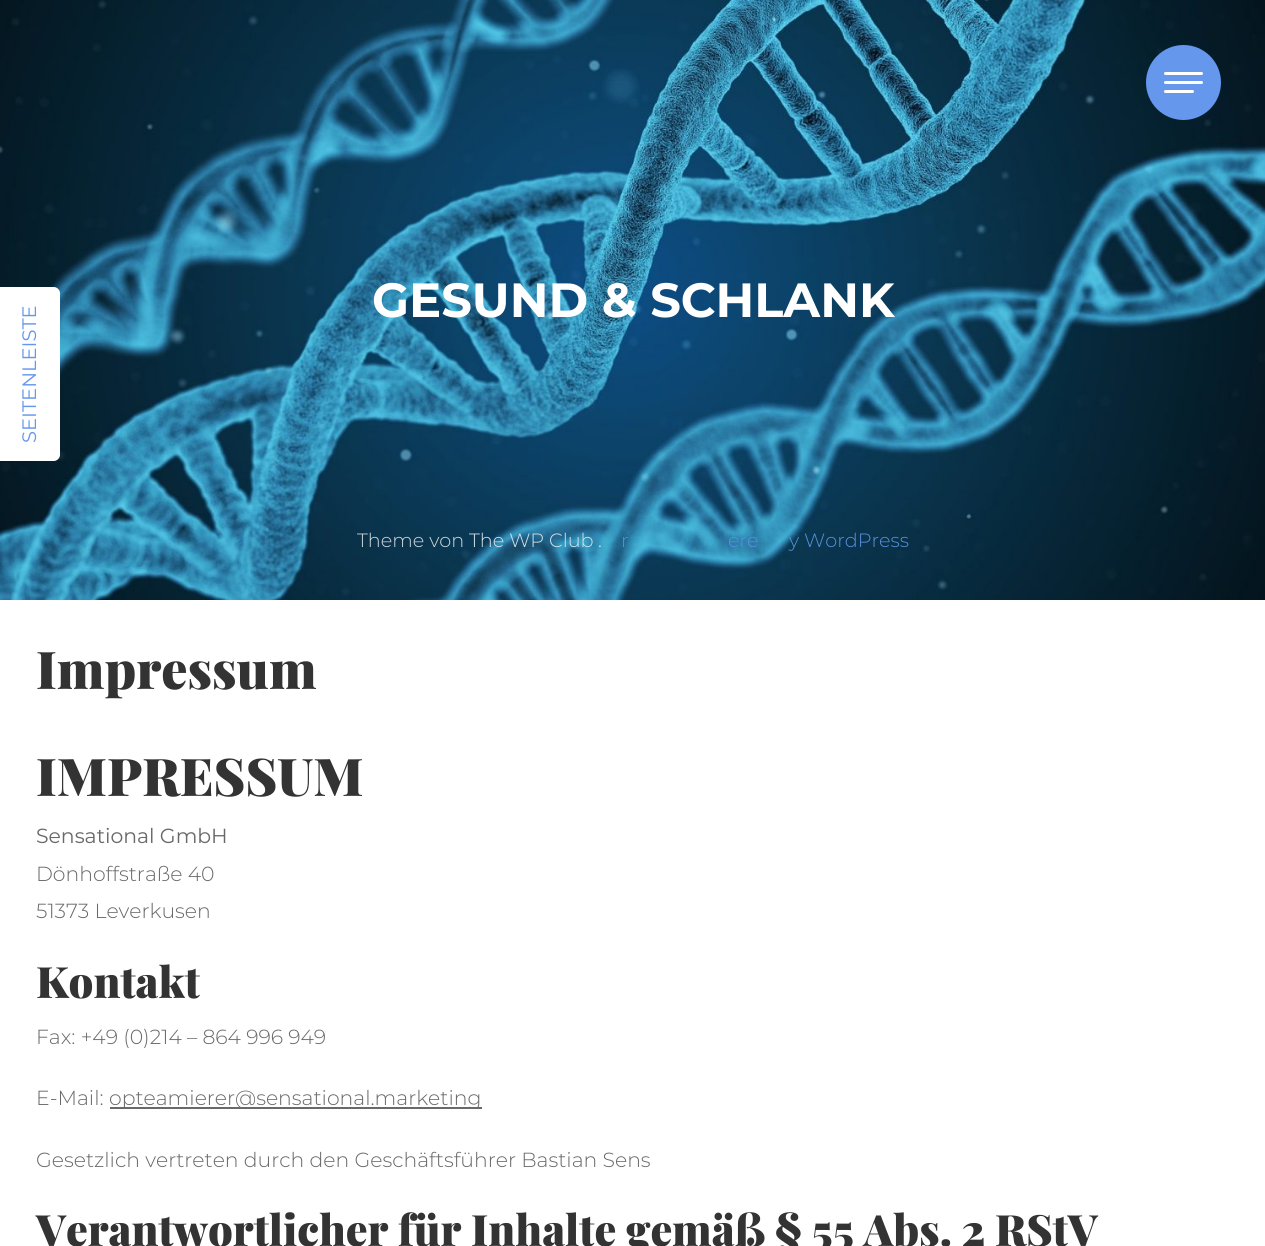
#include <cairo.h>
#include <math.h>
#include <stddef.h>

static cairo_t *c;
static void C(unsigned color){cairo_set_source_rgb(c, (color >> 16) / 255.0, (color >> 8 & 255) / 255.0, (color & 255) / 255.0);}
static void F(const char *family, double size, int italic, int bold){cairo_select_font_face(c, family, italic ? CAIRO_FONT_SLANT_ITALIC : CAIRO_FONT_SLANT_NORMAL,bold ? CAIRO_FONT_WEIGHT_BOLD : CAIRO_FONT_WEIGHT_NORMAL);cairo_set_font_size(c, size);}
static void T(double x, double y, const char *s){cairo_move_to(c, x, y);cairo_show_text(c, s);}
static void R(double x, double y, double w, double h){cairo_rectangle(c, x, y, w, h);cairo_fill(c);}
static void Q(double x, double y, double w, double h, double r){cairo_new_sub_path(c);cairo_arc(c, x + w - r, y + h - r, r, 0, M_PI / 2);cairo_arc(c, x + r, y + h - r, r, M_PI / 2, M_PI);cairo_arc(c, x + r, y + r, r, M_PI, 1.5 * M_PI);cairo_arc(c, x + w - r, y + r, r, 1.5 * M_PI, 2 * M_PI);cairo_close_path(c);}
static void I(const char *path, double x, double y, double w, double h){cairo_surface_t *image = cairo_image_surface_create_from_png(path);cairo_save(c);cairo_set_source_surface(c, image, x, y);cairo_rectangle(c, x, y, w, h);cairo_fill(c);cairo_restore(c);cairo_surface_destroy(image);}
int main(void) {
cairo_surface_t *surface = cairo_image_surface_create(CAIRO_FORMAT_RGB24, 1265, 1246);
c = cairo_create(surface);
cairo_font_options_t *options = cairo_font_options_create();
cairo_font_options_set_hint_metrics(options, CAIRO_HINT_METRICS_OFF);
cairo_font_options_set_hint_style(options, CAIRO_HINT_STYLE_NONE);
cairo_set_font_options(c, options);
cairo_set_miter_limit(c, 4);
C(0xffffff);
cairo_paint(c);
I("1.png",0,0,1265,600);
C(0x6597ed);
cairo_arc(c,1183.5,82.5,37.5,0,2 * M_PI);
cairo_fill(c);
C(0xffffff);
Q(1164,72,39,3,1.5);
cairo_fill(c);
Q(1164,81,39,3,1.5);
cairo_fill(c);
Q(1164,90,30,3,1.5);
cairo_fill(c);
F("Montserrat",48,0,1);
T(372,317,"GESUND & SCHLANK");
cairo_new_path(c);
cairo_move_to(c,0,461);
cairo_line_to(c,0,287);
cairo_line_to(c,54,287);
cairo_curve_to(c,57,287,60,290,60,293);
cairo_line_to(c,60,455);
cairo_curve_to(c,60,458,57,461,54,461);
cairo_close_path(c);
cairo_fill(c);
F("Montserrat",19.5,0,0);
C(0x6597ed);
cairo_save(c);
cairo_translate(c,36,443);
cairo_rotate(c,-90 * M_PI / 180);
T(0,0,"SEITENLEISTE");
cairo_restore(c);
F("Montserrat Light",19.25,0,0);
C(0xced7dc);
T(357,547,"Theme von");
C(0xd3e2e9);
T(469,547,"The WP Club");
C(0xd7ebf3);
T(598,547,".");
C(0x588eda);
T(621,547,"r");
T(728,547,"ere");
T(789,547,"y WordPress");
F("Playfair Display Black",52,0,0);
C(0x333333);
T(36,689,"Impressum");
T(36,796,"IMPRESSUM");
F("Montserrat",20.4,0,0);
C(0x696969);
T(36,843,"Sensational GmbH");
F("Montserrat Light",20.4,0,0);
T(36,881,"Dönhoffstraße 40");
T(36,918,"51373 Leverkusen");
F("Playfair Display Black",43.2,0,0);
C(0x333333);
T(36,998,"Kontakt");
F("Montserrat Light",20.4,0,0);
C(0x696969);
T(36,1044,"Fax: +49 (0)214 – 864 996 949");
T(36,1105,"E-Mail:");
R(110,1107,372,2);
T(109,1105,"opteamierer@sensational.marketing");
T(36,1167,"Gesetzlich vertreten durch den Geschäftsführer Bastian Sens");
F("Playfair Display Black",43.2,0,0);
C(0x333333);
T(36,1246,"Verantwortlicher für Inhalte gemäß § 55 Abs. 2 RStV");
cairo_surface_write_to_png(surface, "o.png");
cairo_font_options_destroy(options);
cairo_destroy(c);
cairo_surface_destroy(surface);
return 0;
}
